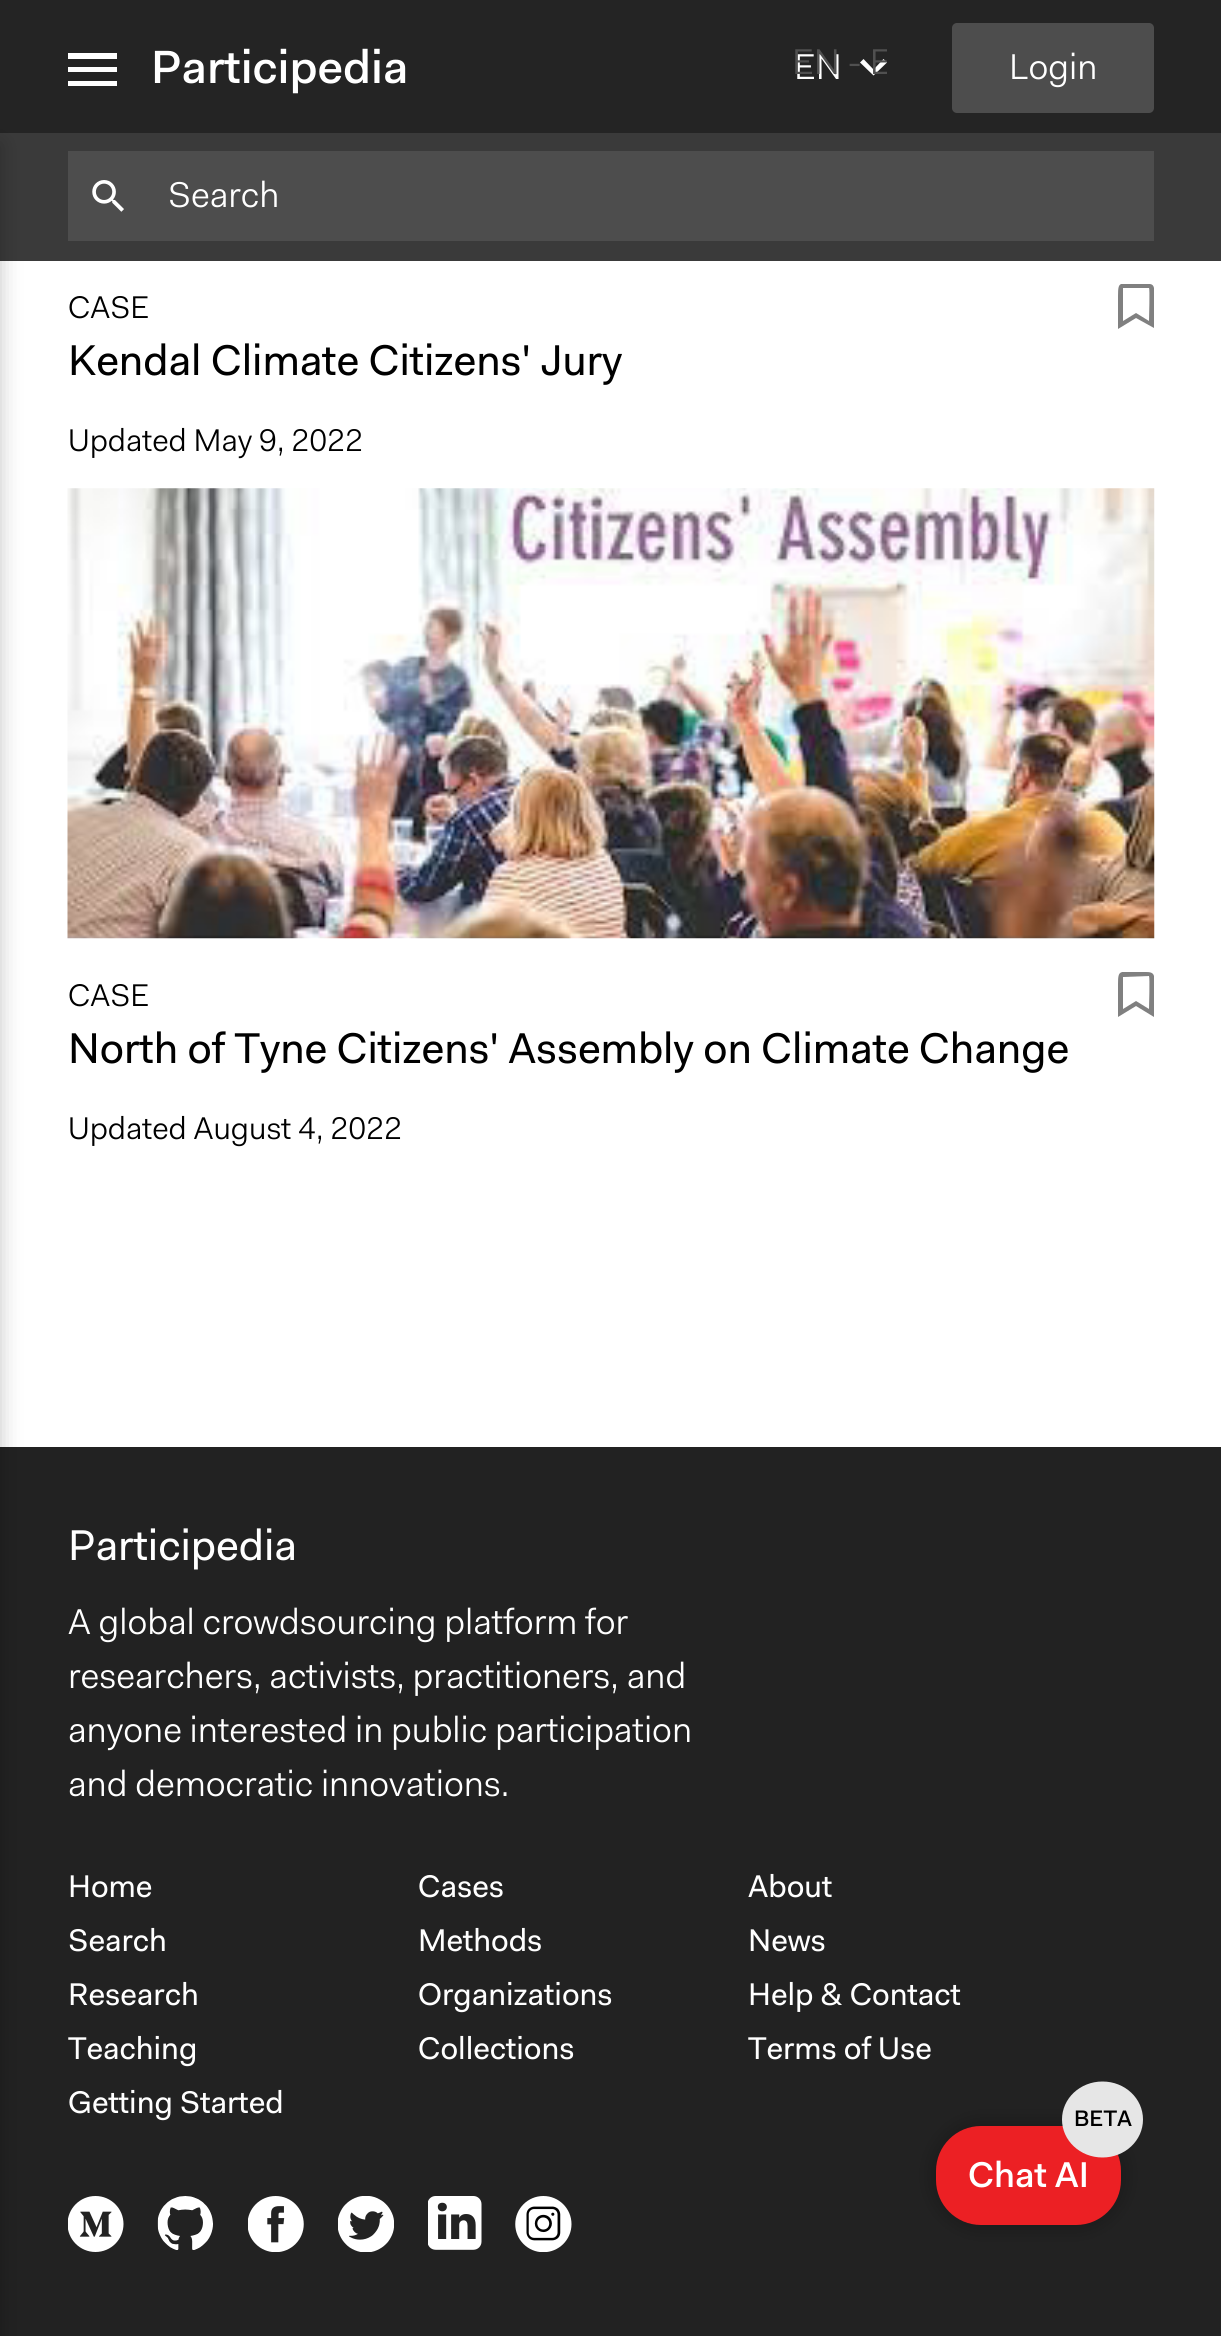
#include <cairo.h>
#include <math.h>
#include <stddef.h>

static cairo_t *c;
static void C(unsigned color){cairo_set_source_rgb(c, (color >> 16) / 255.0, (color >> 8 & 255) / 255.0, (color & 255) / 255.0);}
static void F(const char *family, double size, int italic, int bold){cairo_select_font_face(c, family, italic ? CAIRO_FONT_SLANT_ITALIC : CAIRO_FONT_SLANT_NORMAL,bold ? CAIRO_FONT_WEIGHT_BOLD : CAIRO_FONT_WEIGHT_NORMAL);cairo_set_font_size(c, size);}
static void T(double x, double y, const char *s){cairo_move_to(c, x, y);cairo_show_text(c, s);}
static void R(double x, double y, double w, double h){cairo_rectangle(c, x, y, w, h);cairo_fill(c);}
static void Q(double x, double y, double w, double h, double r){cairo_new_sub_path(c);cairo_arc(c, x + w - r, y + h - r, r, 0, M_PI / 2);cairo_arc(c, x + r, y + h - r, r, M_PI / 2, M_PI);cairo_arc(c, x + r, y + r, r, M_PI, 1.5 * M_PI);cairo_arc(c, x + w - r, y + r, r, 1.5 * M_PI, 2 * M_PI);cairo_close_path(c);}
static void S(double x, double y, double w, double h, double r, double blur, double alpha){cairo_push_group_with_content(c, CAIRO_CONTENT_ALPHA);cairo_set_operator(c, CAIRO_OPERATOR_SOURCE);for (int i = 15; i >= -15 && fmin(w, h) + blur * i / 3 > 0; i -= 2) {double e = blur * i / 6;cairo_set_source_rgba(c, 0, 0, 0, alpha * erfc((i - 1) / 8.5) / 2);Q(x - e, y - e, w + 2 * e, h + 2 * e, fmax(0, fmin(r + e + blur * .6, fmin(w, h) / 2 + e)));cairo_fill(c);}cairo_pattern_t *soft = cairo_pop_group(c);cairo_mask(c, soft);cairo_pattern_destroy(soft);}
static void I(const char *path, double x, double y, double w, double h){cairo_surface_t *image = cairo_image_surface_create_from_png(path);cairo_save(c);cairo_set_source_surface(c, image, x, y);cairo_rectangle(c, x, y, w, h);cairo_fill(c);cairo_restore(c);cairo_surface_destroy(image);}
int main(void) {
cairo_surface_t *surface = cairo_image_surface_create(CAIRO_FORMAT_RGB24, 1221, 2336);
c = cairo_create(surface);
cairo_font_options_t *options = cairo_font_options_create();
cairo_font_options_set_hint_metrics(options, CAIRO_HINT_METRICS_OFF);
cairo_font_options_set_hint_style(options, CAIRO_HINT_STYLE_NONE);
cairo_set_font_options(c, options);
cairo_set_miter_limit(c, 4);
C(0xffffff);
cairo_paint(c);
C(0x242424);
R(0,0,1221,133);
C(0x3a3a3a);
R(0,133,1221,128);
C(0x222222);
R(0,1447,1221,889);
C(0x000000);
S(-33,144,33,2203,0,11,.23);
C(0xffffff);
cairo_set_fill_rule(c,CAIRO_FILL_RULE_EVEN_ODD);
cairo_new_path(c);
cairo_move_to(c,68,86);
cairo_line_to(c,117,86);
cairo_line_to(c,117,81);
cairo_line_to(c,68,81);
cairo_close_path(c);
cairo_move_to(c,68,72);
cairo_line_to(c,117,72);
cairo_line_to(c,117,67);
cairo_line_to(c,68,67);
cairo_close_path(c);
cairo_move_to(c,68,59);
cairo_line_to(c,117,59);
cairo_line_to(c,117,53);
cairo_line_to(c,68,53);
cairo_close_path(c);
cairo_fill(c);
F("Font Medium",46.75,0,0);
T(151,83,"Participedia");
cairo_new_path(c);
cairo_move_to(c,883.5,59);
cairo_line_to(c,887,62.5);
cairo_line_to(c,873.5,75.5);
cairo_line_to(c,860,62.5);
cairo_line_to(c,863.5,59);
cairo_line_to(c,873.5,69.5);
cairo_close_path(c);
cairo_fill(c);
F("Font Light",36,0,0);
T(794,79,"EN");
cairo_save(c);
cairo_set_fill_rule(c,CAIRO_FILL_RULE_WINDING);
cairo_rectangle(c,792,43,95,40);
cairo_clip(c);
C(0x505050);
T(792,74,"EN - E");
cairo_restore(c);
C(0x4d4d4d);
Q(952,23,202,90,5);
cairo_fill(c);
C(0xffffff);
T(1009,79,"Login");
C(0x4d4d4d);
R(68,151,1086,90);
I("1.png",92,180,32,32);
C(0xffffff);
T(168,207,"Search");
F("Font Light",31.5,0,0);
C(0x000000);
T(68,318,"CASE");
F("Font",43.2,0,0);
T(68,375,"Kendal Climate Citizens' Jury");
F("Font Light",31.5,0,0);
T(68,451,"Updated May 9, 2022");
cairo_save(c);
cairo_set_fill_rule(c,CAIRO_FILL_RULE_WINDING);
cairo_rectangle(c,1118,284,36,47);
cairo_clip(c);
C(0x808080);
cairo_new_path(c);
cairo_move_to(c,1118,329);
cairo_line_to(c,1118,296);
cairo_curve_to(c,1118,280,1120,284,1137,284);
cairo_line_to(c,1145,284);
cairo_curve_to(c,1149,284,1153,283,1154,288);
cairo_line_to(c,1154,328);
cairo_line_to(c,1136,318);
cairo_close_path(c);
cairo_move_to(c,1136,313);
cairo_line_to(c,1149,321);
cairo_curve_to(c,1149,317,1150,289,1149,288);
cairo_line_to(c,1123,288);
cairo_line_to(c,1123,321);
cairo_close_path(c);
cairo_fill(c);
cairo_restore(c);
I("2.png",67,488,1088,451);
T(68,1006,"CASE");
F("Font",43.2,0,0);
T(68,1063,"North of Tyne Citizens' Assembly on Climate Change");
F("Font Light",31.5,0,0);
T(68,1139,"Updated August 4, 2022");
cairo_save(c);
cairo_set_fill_rule(c,CAIRO_FILL_RULE_WINDING);
cairo_rectangle(c,1118,972,36,45);
cairo_clip(c);
C(0x808080);
cairo_new_path(c);
cairo_move_to(c,1118,1017);
cairo_line_to(c,1118,984);
cairo_curve_to(c,1118,969,1120,972,1137,972);
cairo_line_to(c,1145,972);
cairo_curve_to(c,1149,972,1153,972,1154,976);
cairo_line_to(c,1154,1017);
cairo_line_to(c,1136,1006);
cairo_close_path(c);
cairo_move_to(c,1136,1001);
cairo_line_to(c,1149,1009);
cairo_curve_to(c,1149,1006,1150,978,1149,976);
cairo_line_to(c,1123,977);
cairo_line_to(c,1123,1009);
cairo_close_path(c);
cairo_fill(c);
cairo_restore(c);
F("Font",43.2,0,0);
C(0xffffff);
T(68,1560,"Participedia");
F("Font Light",36,0,0);
T(68,1634,"A global crowdsourcing platform for");
T(68,1688,"researchers, activists, practitioners, and");
T(68,1742,"anyone interested in public participation");
T(68,1796,"and democratic innovations.");
F("Font",31.5,0,0);
T(68,1897,"Home");
T(68,1951,"Search");
T(68,2005,"Research");
T(68,2059,"Teaching");
T(68,2113,"Getting Started");
T(418,1897,"Cases");
T(418,1951,"Methods");
T(418,2005,"Organizations");
T(418,2059,"Collections");
T(748,1897,"About");
T(748,1951,"News");
T(748,2005,"Help & Contact");
T(748,2059,"Terms of Use");
I("3.png",68,2196,56,56);
I("4.png",157,2196,56,54);
I("5.png",248,2196,56,56);
I("6.png",338,2196,56,56);
I("7.png",428,2196,54,54);
I("8.png",515,2196,57,56);
C(0x000000);
S(936,2126,185,99,45,11,.3);
C(0xec2024);
Q(936,2126,185,99,45);
cairo_fill(c);
C(0xe6e6e6);
cairo_new_path(c);
cairo_move_to(c,1102.5,2081.5);
cairo_curve_to(c,1125,2081.5,1143,2098.5,1143,2119.5);
cairo_curve_to(c,1143,2140.5,1125,2157.5,1102.5,2157.5);
cairo_curve_to(c,1080,2157.5,1062,2140.5,1062,2119.5);
cairo_curve_to(c,1062,2098.5,1080,2081.5,1102.5,2081.5);
cairo_close_path(c);
cairo_fill(c);
F("Font Medium",22.5,0,0);
C(0x000000);
T(1074,2126,"BETA");
F("Font Medium",36,0,0);
C(0xffffff);
T(968,2187,"Chat AI");
cairo_surface_write_to_png(surface, "o.png");
cairo_font_options_destroy(options);
cairo_destroy(c);
cairo_surface_destroy(surface);
return 0;
}
